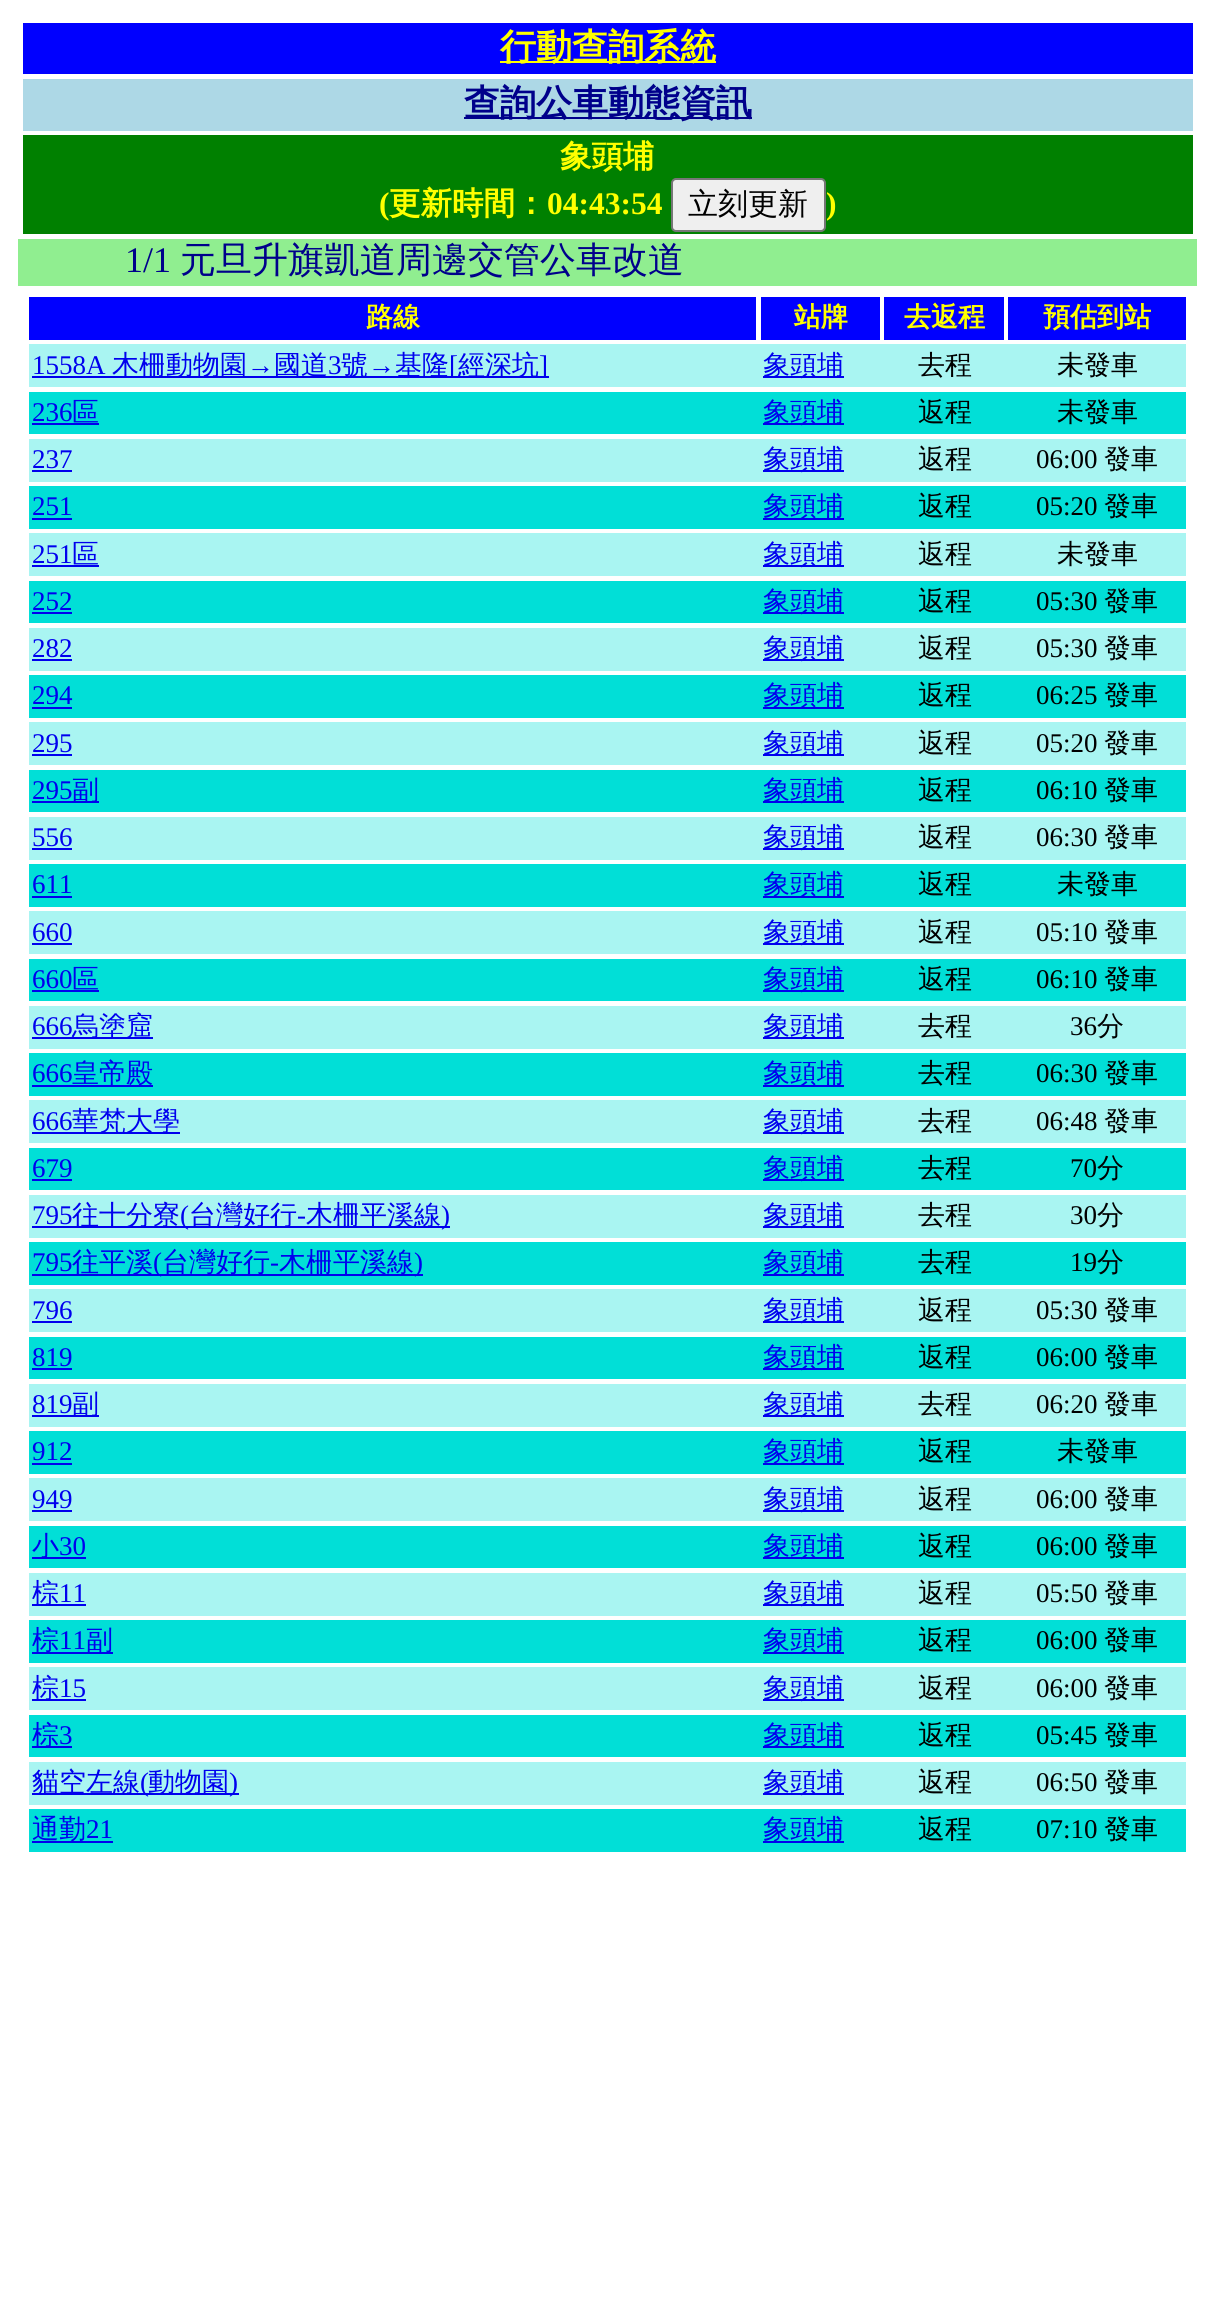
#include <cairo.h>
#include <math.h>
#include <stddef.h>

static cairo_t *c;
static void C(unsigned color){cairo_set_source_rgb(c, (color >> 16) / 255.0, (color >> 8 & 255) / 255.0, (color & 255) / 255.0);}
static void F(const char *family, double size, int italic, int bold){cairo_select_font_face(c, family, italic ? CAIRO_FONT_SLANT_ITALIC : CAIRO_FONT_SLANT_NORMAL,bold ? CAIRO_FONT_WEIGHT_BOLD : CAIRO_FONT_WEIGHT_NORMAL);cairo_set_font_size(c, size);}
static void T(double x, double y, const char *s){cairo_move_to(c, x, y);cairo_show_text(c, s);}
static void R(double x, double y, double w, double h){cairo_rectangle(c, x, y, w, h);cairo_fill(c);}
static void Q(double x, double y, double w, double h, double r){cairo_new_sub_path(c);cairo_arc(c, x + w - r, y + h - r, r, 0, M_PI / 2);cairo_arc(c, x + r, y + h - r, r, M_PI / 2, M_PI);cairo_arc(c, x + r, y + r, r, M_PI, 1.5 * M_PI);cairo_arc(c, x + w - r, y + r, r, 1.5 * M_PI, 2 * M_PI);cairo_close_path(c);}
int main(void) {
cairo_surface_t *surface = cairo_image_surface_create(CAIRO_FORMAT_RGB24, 1214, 2300);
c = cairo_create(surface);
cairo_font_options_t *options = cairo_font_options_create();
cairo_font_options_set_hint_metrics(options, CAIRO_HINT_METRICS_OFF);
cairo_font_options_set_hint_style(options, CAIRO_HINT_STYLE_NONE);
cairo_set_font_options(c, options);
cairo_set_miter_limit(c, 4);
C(0xffffff);
cairo_paint(c);
C(0x0000ff);
R(23,23,1170,51);
C(0xffff00);
R(500,61,216,2);
F("WenQuanYi Zen Hei",36,0,1);
T(500,59,"行動查詢系統");
C(0xadd8e6);
R(23,79,1170,52);
C(0x00008b);
R(464,117,288,2);
T(464,115,"查詢公車動態資訊");
C(0x008000);
R(23,135,1170,99);
F("WenQuanYi Zen Hei",31.5,0,1);
C(0xffff00);
T(560,167,"象頭埔");
F("Liberation Serif",31.5,0,1);
T(379,214,"(");
F("WenQuanYi Zen Hei",31.5,0,1);
T(389,214,"更新時間：");
F("Liberation Serif",31.5,0,1);
T(547,214,"04:43:54");
C(0xefefef);
Q(672,179,153,52,4);
cairo_fill_preserve(c);
C(0x767676);
cairo_stroke(c);
F("WenQuanYi Zen Hei Medium",30,0,0);
C(0x000000);
T(688,214,"立刻更新");
F("Liberation Serif",31.5,0,1);
C(0xffff00);
T(826,214,")");
C(0x90ee90);
R(18,239,1179,47);
F("Liberation Serif",36,0,0);
C(0x00008b);
T(125,272,"1/1");
F("WenQuanYi Zen Hei Medium",36,0,0);
T(180,272,"元旦升旗凱道周邊交管公車改道");
C(0x0000ff);
R(29,297,727,43);
F("WenQuanYi Zen Hei",27,0,1);
C(0xffff00);
T(366,326,"路線");
C(0x0000ff);
R(761,297,119,43);
C(0xffff00);
T(794,326,"站牌");
C(0x0000ff);
R(884,297,120,43);
C(0xffff00);
T(904,326,"去返程");
C(0x0000ff);
R(1008,297,178,43);
C(0xffff00);
T(1043,326,"預估到站");
C(0xa9f5f2);
R(29,344,1157,43);
F("Liberation Serif",27,0,0);
C(0x0000ee);
T(32,374,"1558A");
R(32,376,517,2);
F("WenQuanYi Zen Hei Medium",27,0,0);
T(112,374,"木柵動物園");
F("Liberation Serif",27,0,0);
T(247,374,"→");
F("WenQuanYi Zen Hei Medium",27,0,0);
T(274,374,"國道");
F("Liberation Serif",27,0,0);
T(328,374,"3");
F("WenQuanYi Zen Hei Medium",27,0,0);
T(341,374,"號");
F("Liberation Serif",27,0,0);
T(368,374,"→");
F("WenQuanYi Zen Hei Medium",27,0,0);
T(395,374,"基隆");
F("Liberation Serif",27,0,0);
T(449,374,"[");
F("WenQuanYi Zen Hei Medium",27,0,0);
T(458,374,"經深坑");
F("Liberation Serif",27,0,0);
T(539,374,"]");
R(763,376,81,2);
F("WenQuanYi Zen Hei Medium",27,0,0);
T(763,374,"象頭埔");
C(0x000000);
T(918,374,"去程");
T(1057,374,"未發車");
C(0x01dfd7);
R(29,392,1157,42);
F("Liberation Serif",27,0,0);
C(0x0000ee);
T(32,421,"236");
R(32,423,67,2);
F("WenQuanYi Zen Hei Medium",27,0,0);
T(72,421,"區");
R(763,423,81,2);
T(763,421,"象頭埔");
C(0x000000);
T(918,421,"返程");
T(1057,421,"未發車");
C(0xa9f5f2);
R(29,439,1157,43);
F("Liberation Serif",27,0,0);
C(0x0000ee);
T(32,468,"237");
R(32,470,40,2);
R(763,470,81,2);
F("WenQuanYi Zen Hei Medium",27,0,0);
T(763,468,"象頭埔");
C(0x000000);
T(918,468,"返程");
F("Liberation Serif",27,0,0);
T(1036,468,"06:00");
F("WenQuanYi Zen Hei Medium",27,0,0);
T(1104,468,"發車");
C(0x01dfd7);
R(29,486,1157,43);
F("Liberation Serif",27,0,0);
C(0x0000ee);
T(32,515,"251");
R(32,518,40,2);
R(763,518,81,2);
F("WenQuanYi Zen Hei Medium",27,0,0);
T(763,515,"象頭埔");
C(0x000000);
T(918,515,"返程");
F("Liberation Serif",27,0,0);
T(1036,515,"05:20");
F("WenQuanYi Zen Hei Medium",27,0,0);
T(1104,515,"發車");
C(0xa9f5f2);
R(29,533,1157,43);
F("Liberation Serif",27,0,0);
C(0x0000ee);
T(32,563,"251");
R(32,565,67,2);
F("WenQuanYi Zen Hei Medium",27,0,0);
T(72,563,"區");
R(763,565,81,2);
T(763,563,"象頭埔");
C(0x000000);
T(918,563,"返程");
T(1057,563,"未發車");
C(0x01dfd7);
R(29,581,1157,42);
F("Liberation Serif",27,0,0);
C(0x0000ee);
T(32,610,"252");
R(32,612,40,2);
R(763,612,81,2);
F("WenQuanYi Zen Hei Medium",27,0,0);
T(763,610,"象頭埔");
C(0x000000);
T(918,610,"返程");
F("Liberation Serif",27,0,0);
T(1036,610,"05:30");
F("WenQuanYi Zen Hei Medium",27,0,0);
T(1104,610,"發車");
C(0xa9f5f2);
R(29,628,1157,43);
F("Liberation Serif",27,0,0);
C(0x0000ee);
T(32,657,"282");
R(32,659,40,2);
R(763,659,81,2);
F("WenQuanYi Zen Hei Medium",27,0,0);
T(763,657,"象頭埔");
C(0x000000);
T(918,657,"返程");
F("Liberation Serif",27,0,0);
T(1036,657,"05:30");
F("WenQuanYi Zen Hei Medium",27,0,0);
T(1104,657,"發車");
C(0x01dfd7);
R(29,675,1157,43);
F("Liberation Serif",27,0,0);
C(0x0000ee);
T(32,704,"294");
R(32,707,40,2);
R(763,707,81,2);
F("WenQuanYi Zen Hei Medium",27,0,0);
T(763,704,"象頭埔");
C(0x000000);
T(918,704,"返程");
F("Liberation Serif",27,0,0);
T(1036,704,"06:25");
F("WenQuanYi Zen Hei Medium",27,0,0);
T(1104,704,"發車");
C(0xa9f5f2);
R(29,722,1157,43);
F("Liberation Serif",27,0,0);
C(0x0000ee);
T(32,752,"295");
R(32,754,40,2);
R(763,754,81,2);
F("WenQuanYi Zen Hei Medium",27,0,0);
T(763,752,"象頭埔");
C(0x000000);
T(918,752,"返程");
F("Liberation Serif",27,0,0);
T(1036,752,"05:20");
F("WenQuanYi Zen Hei Medium",27,0,0);
T(1104,752,"發車");
C(0x01dfd7);
R(29,770,1157,42);
F("Liberation Serif",27,0,0);
C(0x0000ee);
T(32,799,"295");
R(32,801,67,2);
F("WenQuanYi Zen Hei Medium",27,0,0);
T(72,799,"副");
R(763,801,81,2);
T(763,799,"象頭埔");
C(0x000000);
T(918,799,"返程");
F("Liberation Serif",27,0,0);
T(1036,799,"06:10");
F("WenQuanYi Zen Hei Medium",27,0,0);
T(1104,799,"發車");
C(0xa9f5f2);
R(29,817,1157,43);
F("Liberation Serif",27,0,0);
C(0x0000ee);
T(32,846,"556");
R(32,848,40,2);
R(763,848,81,2);
F("WenQuanYi Zen Hei Medium",27,0,0);
T(763,846,"象頭埔");
C(0x000000);
T(918,846,"返程");
F("Liberation Serif",27,0,0);
T(1036,846,"06:30");
F("WenQuanYi Zen Hei Medium",27,0,0);
T(1104,846,"發車");
C(0x01dfd7);
R(29,864,1157,43);
F("Liberation Serif",27,0,0);
C(0x0000ee);
T(32,893,"611");
R(32,896,40,2);
R(763,896,81,2);
F("WenQuanYi Zen Hei Medium",27,0,0);
T(763,893,"象頭埔");
C(0x000000);
T(918,893,"返程");
T(1057,893,"未發車");
C(0xa9f5f2);
R(29,911,1157,43);
F("Liberation Serif",27,0,0);
C(0x0000ee);
T(32,941,"660");
R(32,943,40,2);
R(763,943,81,2);
F("WenQuanYi Zen Hei Medium",27,0,0);
T(763,941,"象頭埔");
C(0x000000);
T(918,941,"返程");
F("Liberation Serif",27,0,0);
T(1036,941,"05:10");
F("WenQuanYi Zen Hei Medium",27,0,0);
T(1104,941,"發車");
C(0x01dfd7);
R(29,959,1157,42);
F("Liberation Serif",27,0,0);
C(0x0000ee);
T(32,988,"660");
R(32,990,67,2);
F("WenQuanYi Zen Hei Medium",27,0,0);
T(72,988,"區");
R(763,990,81,2);
T(763,988,"象頭埔");
C(0x000000);
T(918,988,"返程");
F("Liberation Serif",27,0,0);
T(1036,988,"06:10");
F("WenQuanYi Zen Hei Medium",27,0,0);
T(1104,988,"發車");
C(0xa9f5f2);
R(29,1006,1157,43);
F("Liberation Serif",27,0,0);
C(0x0000ee);
T(32,1035,"666");
R(32,1037,121,2);
F("WenQuanYi Zen Hei Medium",27,0,0);
T(72,1035,"烏塗窟");
R(763,1037,81,2);
T(763,1035,"象頭埔");
C(0x000000);
T(918,1035,"去程");
F("Liberation Serif",27,0,0);
T(1070,1035,"36");
F("WenQuanYi Zen Hei Medium",27,0,0);
T(1097,1035,"分");
C(0x01dfd7);
R(29,1053,1157,43);
F("Liberation Serif",27,0,0);
C(0x0000ee);
T(32,1082,"666");
R(32,1085,121,2);
F("WenQuanYi Zen Hei Medium",27,0,0);
T(72,1082,"皇帝殿");
R(763,1085,81,2);
T(763,1082,"象頭埔");
C(0x000000);
T(918,1082,"去程");
F("Liberation Serif",27,0,0);
T(1036,1082,"06:30");
F("WenQuanYi Zen Hei Medium",27,0,0);
T(1104,1082,"發車");
C(0xa9f5f2);
R(29,1100,1157,43);
F("Liberation Serif",27,0,0);
C(0x0000ee);
T(32,1130,"666");
R(32,1132,148,2);
F("WenQuanYi Zen Hei Medium",27,0,0);
T(72,1130,"華梵大學");
R(763,1132,81,2);
T(763,1130,"象頭埔");
C(0x000000);
T(918,1130,"去程");
F("Liberation Serif",27,0,0);
T(1036,1130,"06:48");
F("WenQuanYi Zen Hei Medium",27,0,0);
T(1104,1130,"發車");
C(0x01dfd7);
R(29,1148,1157,42);
F("Liberation Serif",27,0,0);
C(0x0000ee);
T(32,1177,"679");
R(32,1179,40,2);
R(763,1179,81,2);
F("WenQuanYi Zen Hei Medium",27,0,0);
T(763,1177,"象頭埔");
C(0x000000);
T(918,1177,"去程");
F("Liberation Serif",27,0,0);
T(1070,1177,"70");
F("WenQuanYi Zen Hei Medium",27,0,0);
T(1097,1177,"分");
C(0xa9f5f2);
R(29,1195,1157,43);
F("Liberation Serif",27,0,0);
C(0x0000ee);
T(32,1224,"795");
R(32,1226,418,2);
F("WenQuanYi Zen Hei Medium",27,0,0);
T(72,1224,"往十分寮");
F("Liberation Serif",27,0,0);
T(180,1224,"(");
F("WenQuanYi Zen Hei Medium",27,0,0);
T(189,1224,"台灣好行");
F("Liberation Serif",27,0,0);
T(297,1224,"-");
F("WenQuanYi Zen Hei Medium",27,0,0);
T(306,1224,"木柵平溪線");
F("Liberation Serif",27,0,0);
T(441,1224,")");
R(763,1226,81,2);
F("WenQuanYi Zen Hei Medium",27,0,0);
T(763,1224,"象頭埔");
C(0x000000);
T(918,1224,"去程");
F("Liberation Serif",27,0,0);
T(1070,1224,"30");
F("WenQuanYi Zen Hei Medium",27,0,0);
T(1097,1224,"分");
C(0x01dfd7);
R(29,1242,1157,43);
F("Liberation Serif",27,0,0);
C(0x0000ee);
T(32,1271,"795");
R(32,1274,391,2);
F("WenQuanYi Zen Hei Medium",27,0,0);
T(72,1271,"往平溪");
F("Liberation Serif",27,0,0);
T(153,1271,"(");
F("WenQuanYi Zen Hei Medium",27,0,0);
T(162,1271,"台灣好行");
F("Liberation Serif",27,0,0);
T(270,1271,"-");
F("WenQuanYi Zen Hei Medium",27,0,0);
T(279,1271,"木柵平溪線");
F("Liberation Serif",27,0,0);
T(414,1271,")");
R(763,1274,81,2);
F("WenQuanYi Zen Hei Medium",27,0,0);
T(763,1271,"象頭埔");
C(0x000000);
T(918,1271,"去程");
F("Liberation Serif",27,0,0);
T(1070,1271,"19");
F("WenQuanYi Zen Hei Medium",27,0,0);
T(1097,1271,"分");
C(0xa9f5f2);
R(29,1289,1157,43);
F("Liberation Serif",27,0,0);
C(0x0000ee);
T(32,1319,"796");
R(32,1321,40,2);
R(763,1321,81,2);
F("WenQuanYi Zen Hei Medium",27,0,0);
T(763,1319,"象頭埔");
C(0x000000);
T(918,1319,"返程");
F("Liberation Serif",27,0,0);
T(1036,1319,"05:30");
F("WenQuanYi Zen Hei Medium",27,0,0);
T(1104,1319,"發車");
C(0x01dfd7);
R(29,1337,1157,42);
F("Liberation Serif",27,0,0);
C(0x0000ee);
T(32,1366,"819");
R(32,1368,40,2);
R(763,1368,81,2);
F("WenQuanYi Zen Hei Medium",27,0,0);
T(763,1366,"象頭埔");
C(0x000000);
T(918,1366,"返程");
F("Liberation Serif",27,0,0);
T(1036,1366,"06:00");
F("WenQuanYi Zen Hei Medium",27,0,0);
T(1104,1366,"發車");
C(0xa9f5f2);
R(29,1384,1157,43);
F("Liberation Serif",27,0,0);
C(0x0000ee);
T(32,1413,"819");
R(32,1415,67,2);
F("WenQuanYi Zen Hei Medium",27,0,0);
T(72,1413,"副");
R(763,1415,81,2);
T(763,1413,"象頭埔");
C(0x000000);
T(918,1413,"去程");
F("Liberation Serif",27,0,0);
T(1036,1413,"06:20");
F("WenQuanYi Zen Hei Medium",27,0,0);
T(1104,1413,"發車");
C(0x01dfd7);
R(29,1431,1157,43);
F("Liberation Serif",27,0,0);
C(0x0000ee);
T(32,1460,"912");
R(32,1463,40,2);
R(763,1463,81,2);
F("WenQuanYi Zen Hei Medium",27,0,0);
T(763,1460,"象頭埔");
C(0x000000);
T(918,1460,"返程");
T(1057,1460,"未發車");
C(0xa9f5f2);
R(29,1478,1157,43);
F("Liberation Serif",27,0,0);
C(0x0000ee);
T(32,1508,"949");
R(32,1510,40,2);
R(763,1510,81,2);
F("WenQuanYi Zen Hei Medium",27,0,0);
T(763,1508,"象頭埔");
C(0x000000);
T(918,1508,"返程");
F("Liberation Serif",27,0,0);
T(1036,1508,"06:00");
F("WenQuanYi Zen Hei Medium",27,0,0);
T(1104,1508,"發車");
C(0x01dfd7);
R(29,1526,1157,42);
C(0x0000ee);
R(32,1557,54,2);
T(32,1555,"小");
F("Liberation Serif",27,0,0);
T(59,1555,"30");
R(763,1557,81,2);
F("WenQuanYi Zen Hei Medium",27,0,0);
T(763,1555,"象頭埔");
C(0x000000);
T(918,1555,"返程");
F("Liberation Serif",27,0,0);
T(1036,1555,"06:00");
F("WenQuanYi Zen Hei Medium",27,0,0);
T(1104,1555,"發車");
C(0xa9f5f2);
R(29,1573,1157,43);
C(0x0000ee);
R(32,1604,54,2);
T(32,1602,"棕");
F("Liberation Serif",27,0,0);
T(59,1602,"11");
R(763,1604,81,2);
F("WenQuanYi Zen Hei Medium",27,0,0);
T(763,1602,"象頭埔");
C(0x000000);
T(918,1602,"返程");
F("Liberation Serif",27,0,0);
T(1036,1602,"05:50");
F("WenQuanYi Zen Hei Medium",27,0,0);
T(1104,1602,"發車");
C(0x01dfd7);
R(29,1620,1157,43);
C(0x0000ee);
R(32,1652,81,2);
T(32,1649,"棕");
F("Liberation Serif",27,0,0);
T(59,1649,"11");
F("WenQuanYi Zen Hei Medium",27,0,0);
T(86,1649,"副");
R(763,1652,81,2);
T(763,1649,"象頭埔");
C(0x000000);
T(918,1649,"返程");
F("Liberation Serif",27,0,0);
T(1036,1649,"06:00");
F("WenQuanYi Zen Hei Medium",27,0,0);
T(1104,1649,"發車");
C(0xa9f5f2);
R(29,1667,1157,43);
C(0x0000ee);
R(32,1699,54,2);
T(32,1697,"棕");
F("Liberation Serif",27,0,0);
T(59,1697,"15");
R(763,1699,81,2);
F("WenQuanYi Zen Hei Medium",27,0,0);
T(763,1697,"象頭埔");
C(0x000000);
T(918,1697,"返程");
F("Liberation Serif",27,0,0);
T(1036,1697,"06:00");
F("WenQuanYi Zen Hei Medium",27,0,0);
T(1104,1697,"發車");
C(0x01dfd7);
R(29,1715,1157,42);
C(0x0000ee);
R(32,1746,40,2);
T(32,1744,"棕");
F("Liberation Serif",27,0,0);
T(59,1744,"3");
R(763,1746,81,2);
F("WenQuanYi Zen Hei Medium",27,0,0);
T(763,1744,"象頭埔");
C(0x000000);
T(918,1744,"返程");
F("Liberation Serif",27,0,0);
T(1036,1744,"05:45");
F("WenQuanYi Zen Hei Medium",27,0,0);
T(1104,1744,"發車");
C(0xa9f5f2);
R(29,1762,1157,43);
C(0x0000ee);
R(32,1793,207,2);
T(32,1791,"貓空左線");
F("Liberation Serif",27,0,0);
T(140,1791,"(");
F("WenQuanYi Zen Hei Medium",27,0,0);
T(148,1791,"動物園");
F("Liberation Serif",27,0,0);
T(229,1791,")");
R(763,1793,81,2);
F("WenQuanYi Zen Hei Medium",27,0,0);
T(763,1791,"象頭埔");
C(0x000000);
T(918,1791,"返程");
F("Liberation Serif",27,0,0);
T(1036,1791,"06:50");
F("WenQuanYi Zen Hei Medium",27,0,0);
T(1104,1791,"發車");
C(0x01dfd7);
R(29,1809,1157,43);
C(0x0000ee);
R(32,1841,81,2);
T(32,1838,"通勤");
F("Liberation Serif",27,0,0);
T(86,1838,"21");
R(763,1841,81,2);
F("WenQuanYi Zen Hei Medium",27,0,0);
T(763,1838,"象頭埔");
C(0x000000);
T(918,1838,"返程");
F("Liberation Serif",27,0,0);
T(1036,1838,"07:10");
F("WenQuanYi Zen Hei Medium",27,0,0);
T(1104,1838,"發車");
cairo_surface_write_to_png(surface, "o.png");
cairo_font_options_destroy(options);
cairo_destroy(c);
cairo_surface_destroy(surface);
return 0;
}
